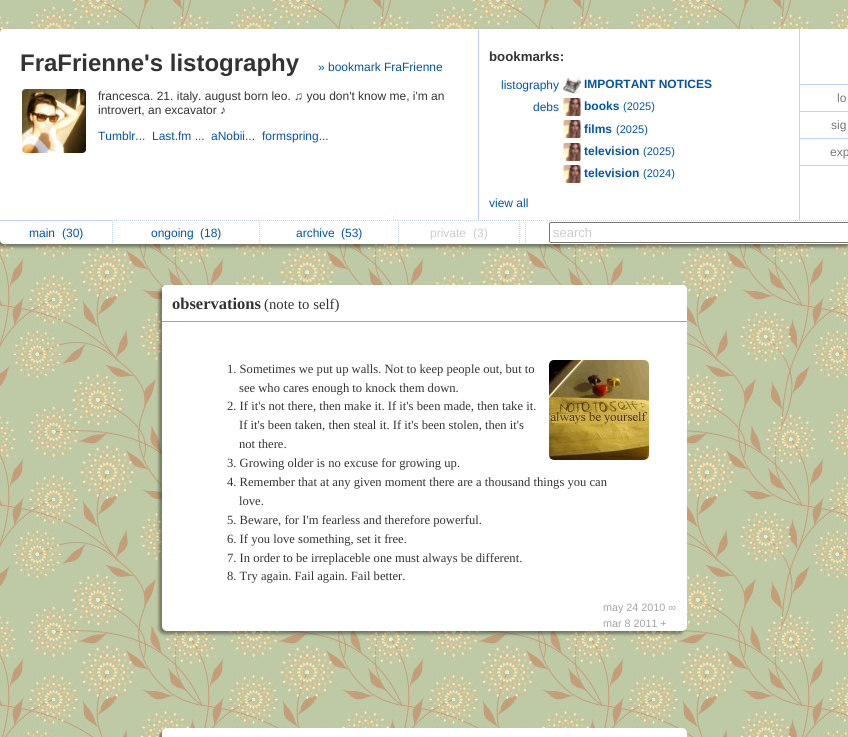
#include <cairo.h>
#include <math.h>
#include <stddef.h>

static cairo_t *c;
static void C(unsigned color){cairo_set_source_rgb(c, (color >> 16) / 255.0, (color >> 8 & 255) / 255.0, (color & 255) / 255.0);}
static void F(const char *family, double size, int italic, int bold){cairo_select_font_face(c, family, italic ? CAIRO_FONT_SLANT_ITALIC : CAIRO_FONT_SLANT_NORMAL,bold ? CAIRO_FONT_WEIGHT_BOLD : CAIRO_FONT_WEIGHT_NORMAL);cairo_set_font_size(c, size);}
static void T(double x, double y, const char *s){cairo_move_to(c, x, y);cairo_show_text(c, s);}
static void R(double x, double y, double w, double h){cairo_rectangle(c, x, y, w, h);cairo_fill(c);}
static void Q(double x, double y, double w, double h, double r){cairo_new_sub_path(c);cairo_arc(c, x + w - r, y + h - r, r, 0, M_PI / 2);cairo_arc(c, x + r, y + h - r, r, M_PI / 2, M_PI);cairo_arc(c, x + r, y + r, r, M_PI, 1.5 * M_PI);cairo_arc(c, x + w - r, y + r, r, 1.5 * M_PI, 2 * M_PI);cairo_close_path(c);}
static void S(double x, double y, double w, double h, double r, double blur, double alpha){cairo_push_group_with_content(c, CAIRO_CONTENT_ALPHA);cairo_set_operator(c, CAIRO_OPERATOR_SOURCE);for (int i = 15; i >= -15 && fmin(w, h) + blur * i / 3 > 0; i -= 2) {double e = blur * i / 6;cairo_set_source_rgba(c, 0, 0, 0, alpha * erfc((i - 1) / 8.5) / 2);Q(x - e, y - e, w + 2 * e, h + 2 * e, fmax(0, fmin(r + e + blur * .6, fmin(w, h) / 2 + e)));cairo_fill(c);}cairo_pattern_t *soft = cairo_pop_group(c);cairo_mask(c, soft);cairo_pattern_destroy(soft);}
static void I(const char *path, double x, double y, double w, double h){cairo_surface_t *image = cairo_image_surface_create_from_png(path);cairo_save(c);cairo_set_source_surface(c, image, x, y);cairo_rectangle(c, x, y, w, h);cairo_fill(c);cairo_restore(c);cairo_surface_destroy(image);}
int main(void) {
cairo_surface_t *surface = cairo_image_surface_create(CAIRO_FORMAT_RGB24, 848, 737);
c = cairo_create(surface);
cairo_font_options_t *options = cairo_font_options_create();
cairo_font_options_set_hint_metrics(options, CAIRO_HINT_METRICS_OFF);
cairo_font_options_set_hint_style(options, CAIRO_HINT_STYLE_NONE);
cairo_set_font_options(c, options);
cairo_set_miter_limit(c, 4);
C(0xffffff);
cairo_paint(c);
I("1.png",0,0,848,737);
C(0x000000);
S(-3,32,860,215,4,1.5,.4);
C(0xffffff);
Q(0,29,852,215,4);
cairo_fill(c);
C(0xbed4ff);
R(478,29,1,192);
F("Liberation Sans",24,0,1);
C(0x333333);
T(20,71,"FraFrienne's listography");
F("Liberation Sans",12,0,0);
C(0x0055aa);
T(318,71,"» bookmark FraFrienne");
I("2.png",22,89,64,64);
C(0x333333);
T(98,100,"francesca. 21. italy. august born leo. ♫ you don't know me, i'm an");
T(98,114,"introvert, an excavator ♪");
C(0x0055aa);
T(98,140,"Tumblr...");
T(152,140,"Last.fm ...");
T(211,140,"aNobii...");
T(262,140,"formspring...");
F("Liberation Sans",13.25,0,1);
C(0x333333);
T(489,61,"bookmarks:");
F("Liberation Sans",12,0,0);
C(0x0055aa);
T(501,89,"listography");
I("3.png",563,76,18,18);
F("Liberation Sans",12,0,1);
T(584,88,"IMPORTANT NOTICES");
F("Liberation Sans",12,0,0);
T(533,111,"debs");
I("4.png",563,98,18,18);
F("Liberation Sans",12,0,1);
T(584,110,"books");
F("Liberation Sans",11,0,0);
T(623,110,"(2025)");
I("4.png",563,120,18,18);
F("Liberation Sans",12,0,1);
T(584,133,"films");
F("Liberation Sans",11,0,0);
T(616,133,"(2025)");
I("4.png",563,143,18,18);
F("Liberation Sans",12,0,1);
T(584,155,"television");
F("Liberation Sans",11,0,0);
T(643,155,"(2025)");
I("4.png",563,165,18,18);
F("Liberation Sans",12,0,1);
T(584,177,"television");
F("Liberation Sans",11,0,0);
T(643,177,"(2024)");
F("Liberation Sans",12,0,0);
T(489,207,"view all");
C(0xbed4ff);
R(799,29,1,192);
R(800,84,48,1);
C(0x777777);
T(837,102,"lo");
C(0xbed4ff);
R(800,111,48,1);
C(0x777777);
T(831,129,"sig");
C(0xbed4ff);
R(800,138,48,1);
R(800,165,48,1);
C(0x777777);
T(830,156,"exp");
C(0xbed4ff);
R(0,220,112,1);
C(0x0055aa);
T(29,237,"main");
T(62,237,"(30)");
cairo_new_path(c);
cairo_move_to(c,112,220.5);
cairo_line_to(c,259,220.5);
C(0xbed4ff);
cairo_set_line_width(c,1);
cairo_set_dash(c,(double[]){1,1},2,0);
cairo_stroke(c);
cairo_new_path(c);
cairo_move_to(c,112.5,220);
cairo_line_to(c,112.5,244);
cairo_stroke(c);
C(0x0055aa);
T(151,237,"ongoing");
T(200,237,"(18)");
cairo_new_path(c);
cairo_move_to(c,259,220.5);
cairo_line_to(c,398,220.5);
C(0xbed4ff);
cairo_stroke(c);
cairo_new_path(c);
cairo_move_to(c,259.5,220);
cairo_line_to(c,259.5,244);
cairo_stroke(c);
C(0x0055aa);
T(296,237,"archive");
T(341,237,"(53)");
cairo_new_path(c);
cairo_move_to(c,398,220.5);
cairo_line_to(c,519,220.5);
C(0xbed4ff);
cairo_stroke(c);
cairo_new_path(c);
cairo_move_to(c,398.5,220);
cairo_line_to(c,398.5,244);
cairo_stroke(c);
C(0xcccccc);
T(430,237,"private");
T(473,237,"(3)");
cairo_new_path(c);
cairo_move_to(c,519,220.5);
cairo_line_to(c,520,220.5);
cairo_move_to(c,521,220.5);
cairo_line_to(c,522,220.5);
cairo_move_to(c,523,220.5);
cairo_line_to(c,524,220.5);
C(0xbed4ff);
cairo_set_dash(c,NULL,0,0);
cairo_stroke(c);
cairo_new_path(c);
cairo_move_to(c,519.5,220);
cairo_line_to(c,519.5,244);
cairo_set_dash(c,(double[]){1,1},2,0);
cairo_stroke(c);
cairo_new_path(c);
cairo_move_to(c,525,220.5);
cairo_line_to(c,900,220.5);
cairo_stroke(c);
cairo_new_path(c);
cairo_move_to(c,525.5,220);
cairo_line_to(c,525.5,244);
cairo_stroke(c);
Q(549.5,222.5,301,20,1.5);
C(0x767676);
cairo_set_dash(c,NULL,0,0);
cairo_stroke(c);
F("Liberation Sans",13,0,0);
C(0xcccccc);
T(553,237,"search");
C(0x000000);
S(159,288,525,346,5,1.5,.4);
C(0xffffff);
Q(162,285,525,346,5);
cairo_fill(c);
cairo_new_path(c);
cairo_move_to(c,167,285);
cairo_line_to(c,682,285);
cairo_curve_to(c,685,285,687,287,687,290);
cairo_line_to(c,687,322);
cairo_line_to(c,162,322);
cairo_line_to(c,162,290);
cairo_curve_to(c,162,287,164,285,167,285);
cairo_close_path(c);
cairo_fill(c);
cairo_new_path(c);
cairo_move_to(c,167,285);
cairo_curve_to(c,164,285,162,287,162,290);
cairo_curve_to(c,162,288,164,286,167,286);
cairo_line_to(c,682,286);
cairo_curve_to(c,685,286,687,288,687,290);
cairo_curve_to(c,687,287,685,285,682,285);
cairo_close_path(c);
cairo_fill(c);
C(0xa3a3a3);
R(162,321,525,1);
F("Liberation Serif",16.5,0,1);
C(0x333333);
T(172,309,"observations");
F("Liberation Serif",14.75,0,0);
T(264,309,"(note to self)");
I("5.png",549,360,100,100);
F("Liberation Serif",12.6,0,0);
T(227,373,"1. Sometimes we put up walls. Not to keep people out, but to");
T(239,392,"see who cares enough to knock them down.");
T(227,410,"2. If it's not there, then make it. If it's been made, then take it.");
T(239,429,"If it's been taken, then steal it. If it's been stolen, then it's");
T(239,448,"not there.");
T(227,467,"3. Growing older is no excuse for growing up.");
T(227,486,"4. Remember that at any given moment there are a thousand things you can");
T(239,505,"love.");
T(227,524,"5. Beware, for I'm fearless and therefore powerful.");
T(227,543,"6. If you love something, set it free.");
T(227,562,"7. In order to be irreplaceble one must always be different.");
T(227,580,"8. Try again. Fail again. Fail better.");
F("Liberation Sans",10.75,0,0);
C(0xa3a3a3);
T(603,611,"may 24 2010 ∞");
T(603,627,"mar 8 2011 +");
C(0x000000);
S(159,731,525,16,5,1.5,.4);
C(0xffffff);
Q(162,728,525,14,5);
cairo_fill(c);
cairo_surface_write_to_png(surface, "o.png");
cairo_font_options_destroy(options);
cairo_destroy(c);
cairo_surface_destroy(surface);
return 0;
}
